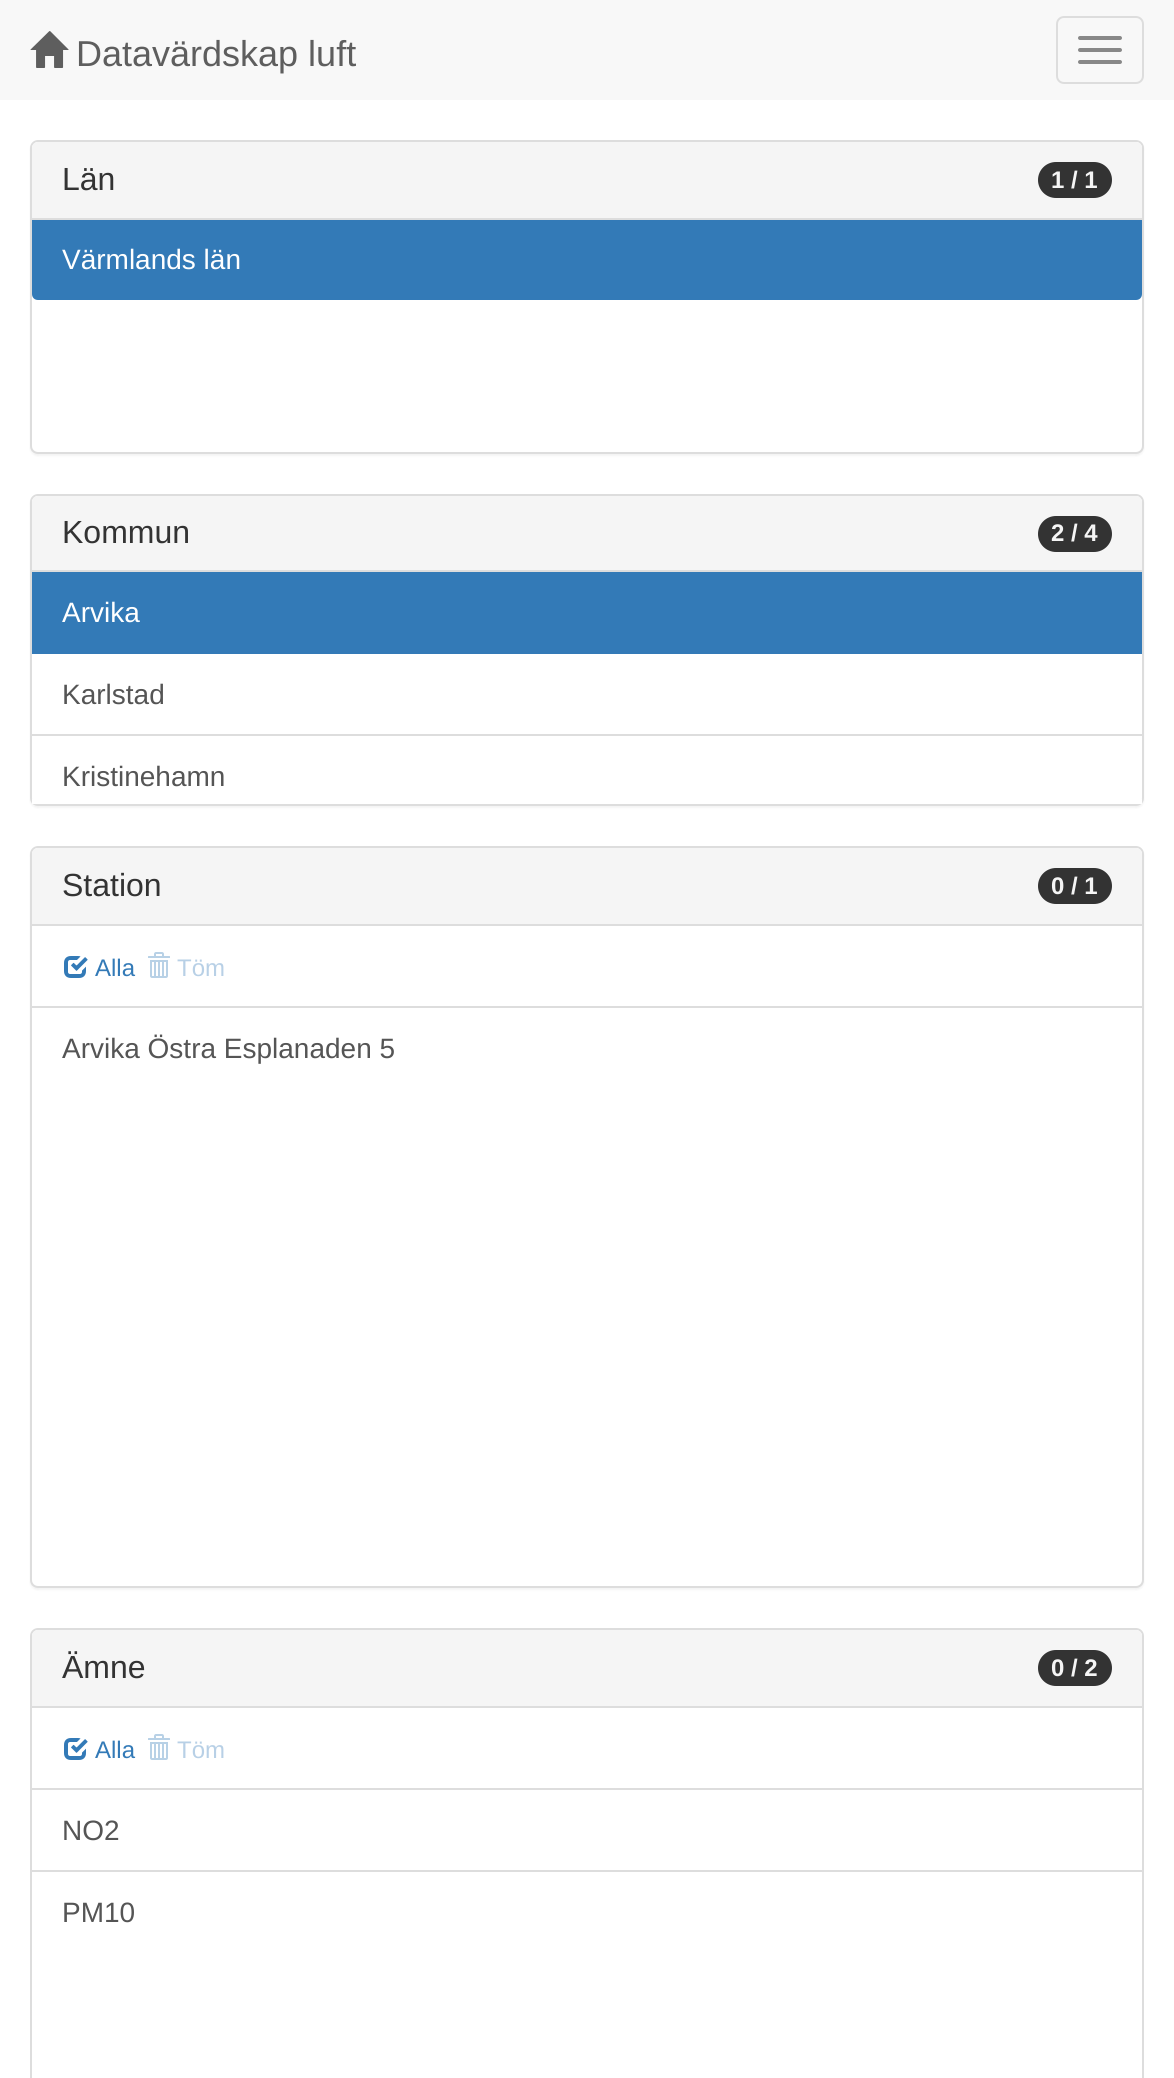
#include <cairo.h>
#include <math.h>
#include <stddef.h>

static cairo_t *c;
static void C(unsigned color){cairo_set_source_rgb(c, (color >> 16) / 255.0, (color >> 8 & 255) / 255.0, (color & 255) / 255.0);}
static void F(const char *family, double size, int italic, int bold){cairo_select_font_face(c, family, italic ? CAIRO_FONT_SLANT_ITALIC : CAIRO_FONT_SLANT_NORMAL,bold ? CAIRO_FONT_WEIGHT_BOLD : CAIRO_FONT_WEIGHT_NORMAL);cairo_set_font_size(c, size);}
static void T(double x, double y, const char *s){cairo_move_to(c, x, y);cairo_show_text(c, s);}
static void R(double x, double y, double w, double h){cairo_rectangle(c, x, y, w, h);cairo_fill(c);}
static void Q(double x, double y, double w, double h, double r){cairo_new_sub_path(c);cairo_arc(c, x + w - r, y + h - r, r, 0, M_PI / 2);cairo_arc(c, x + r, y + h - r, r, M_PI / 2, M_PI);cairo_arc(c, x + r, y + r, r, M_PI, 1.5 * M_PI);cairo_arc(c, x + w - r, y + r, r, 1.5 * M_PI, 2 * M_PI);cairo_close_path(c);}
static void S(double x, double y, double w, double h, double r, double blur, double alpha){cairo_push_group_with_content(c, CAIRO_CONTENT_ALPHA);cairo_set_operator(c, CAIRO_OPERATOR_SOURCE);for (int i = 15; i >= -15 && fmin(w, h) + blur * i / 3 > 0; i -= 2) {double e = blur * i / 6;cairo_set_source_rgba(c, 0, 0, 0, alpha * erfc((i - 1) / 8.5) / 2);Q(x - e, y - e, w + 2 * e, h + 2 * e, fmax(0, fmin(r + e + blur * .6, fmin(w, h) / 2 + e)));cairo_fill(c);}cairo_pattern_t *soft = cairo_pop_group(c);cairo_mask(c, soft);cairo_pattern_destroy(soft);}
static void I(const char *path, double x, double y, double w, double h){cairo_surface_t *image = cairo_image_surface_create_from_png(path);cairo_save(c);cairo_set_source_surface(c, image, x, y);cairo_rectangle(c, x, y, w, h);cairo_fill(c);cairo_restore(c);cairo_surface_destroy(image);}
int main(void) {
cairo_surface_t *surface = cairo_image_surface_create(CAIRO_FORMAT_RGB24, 1174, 2078);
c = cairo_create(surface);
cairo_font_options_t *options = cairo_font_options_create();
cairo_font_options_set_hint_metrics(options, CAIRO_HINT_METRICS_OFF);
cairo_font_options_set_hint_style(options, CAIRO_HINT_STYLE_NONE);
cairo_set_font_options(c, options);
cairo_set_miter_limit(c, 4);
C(0xffffff);
cairo_paint(c);
C(0xf8f8f8);
R(0,0,1174,100);
I("1.png",30,31,39,37);
F("Liberation Sans",36,0,0);
C(0x5e5e5e);
T(76,66,"Datavärdskap luft");
Q(1057,17,86,66,7);
C(0xdddddd);
cairo_stroke(c);
C(0x888888);
Q(1078,36,44,4,2);
cairo_fill(c);
Q(1078,48,44,4,2);
cairo_fill(c);
Q(1078,60,44,4,2);
cairo_fill(c);
C(0x000000);
S(30,142,1114,314,8,1,.05);
C(0xffffff);
Q(31,141,1112,312,7);
cairo_fill_preserve(c);
C(0xdddddd);
cairo_stroke(c);
C(0xf5f5f5);
cairo_new_path(c);
cairo_move_to(c,38,142);
cairo_line_to(c,1136,142);
cairo_curve_to(c,1139.5,142,1142,144.5,1142,148);
cairo_line_to(c,1142,220);
cairo_line_to(c,32,220);
cairo_line_to(c,32,148);
cairo_curve_to(c,32,144.5,34.5,142,38,142);
cairo_close_path(c);
cairo_fill(c);
C(0xdddddd);
R(32,218,1110,2);
F("Liberation Sans",32,0,0);
C(0x333333);
T(62,190,"Län");
Q(1038,162,74,36,18);
cairo_fill(c);
F("Liberation Sans",24,0,1);
C(0xf5f5f5);
T(1051,188,"1 / 1");
C(0x337ab7);
cairo_new_path(c);
cairo_move_to(c,32,220);
cairo_line_to(c,1142,220);
cairo_line_to(c,1142,294);
cairo_curve_to(c,1142,297.5,1139.5,300,1136,300);
cairo_line_to(c,38,300);
cairo_curve_to(c,34.5,300,32,297.5,32,294);
cairo_close_path(c);
cairo_fill(c);
F("Liberation Sans",28,0,0);
C(0xffffff);
T(62,269,"Värmlands län");
C(0x000000);
S(30,496,1114,312,8,1,.05);
C(0xffffff);
Q(31,495,1112,310,7);
cairo_fill_preserve(c);
C(0xdddddd);
cairo_stroke(c);
C(0xf5f5f5);
cairo_new_path(c);
cairo_move_to(c,38,496);
cairo_line_to(c,1136,496);
cairo_curve_to(c,1139.5,496,1142,498.5,1142,502);
cairo_line_to(c,1142,572);
cairo_line_to(c,32,572);
cairo_line_to(c,32,502);
cairo_curve_to(c,32,498.5,34.5,496,38,496);
cairo_close_path(c);
cairo_fill(c);
C(0xdddddd);
R(32,570,1110,2);
F("Liberation Sans",32,0,0);
C(0x333333);
T(62,543,"Kommun");
Q(1038,516,74,36,18);
cairo_fill(c);
F("Liberation Sans",24,0,1);
C(0xf5f5f5);
T(1051,541,"2 / 4");
C(0x337ab7);
R(32,572,1110,82);
F("Liberation Sans",28,0,0);
C(0xffffff);
T(62,622,"Arvika");
C(0xdddddd);
R(32,734,1110,2);
C(0x555555);
T(62,704,"Karlstad");
C(0xffffff);
R(32,799,1110,5);
C(0x555555);
T(62,786,"Kristinehamn");
C(0x000000);
S(30,848,1114,742,8,1,.05);
C(0xffffff);
Q(31,847,1112,740,7);
cairo_fill_preserve(c);
C(0xdddddd);
cairo_stroke(c);
C(0xf5f5f5);
cairo_new_path(c);
cairo_move_to(c,38,848);
cairo_line_to(c,1136,848);
cairo_curve_to(c,1139.5,848,1142,850.5,1142,854);
cairo_line_to(c,1142,926);
cairo_line_to(c,32,926);
cairo_line_to(c,32,854);
cairo_curve_to(c,32,850.5,34.5,848,38,848);
cairo_close_path(c);
cairo_fill(c);
C(0xdddddd);
R(32,924,1110,2);
F("Liberation Sans",32,0,0);
C(0x333333);
T(62,896,"Station");
Q(1038,868,74,36,18);
cairo_fill(c);
F("Liberation Sans",24,0,1);
C(0xf5f5f5);
T(1051,894,"0 / 1");
I("2.png",64,956,24,22);
F("Liberation Sans",24,0,0);
C(0x337ab7);
T(95,976,"Alla");
I("3.png",148,952,22,26);
C(0xb8d0e6);
T(177,976,"Töm");
C(0xdddddd);
R(32,1006,1110,2);
F("Liberation Sans",28,0,0);
C(0x555555);
T(62,1058,"Arvika Östra Esplanaden 5");
Q(31,1629,1112,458,7);
C(0xdddddd);
cairo_stroke(c);
C(0xf5f5f5);
cairo_new_path(c);
cairo_move_to(c,38,1630);
cairo_line_to(c,1136,1630);
cairo_curve_to(c,1139.5,1630,1142,1632.5,1142,1636);
cairo_line_to(c,1142,1708);
cairo_line_to(c,32,1708);
cairo_line_to(c,32,1636);
cairo_curve_to(c,32,1632.5,34.5,1630,38,1630);
cairo_close_path(c);
cairo_fill(c);
C(0xdddddd);
R(32,1706,1110,2);
F("Liberation Sans",32,0,0);
C(0x333333);
T(62,1678,"Ämne");
Q(1038,1650,74,36,18);
cairo_fill(c);
F("Liberation Sans",24,0,1);
C(0xf5f5f5);
T(1051,1676,"0 / 2");
I("2.png",64,1738,24,22);
F("Liberation Sans",24,0,0);
C(0x337ab7);
T(95,1758,"Alla");
I("3.png",148,1734,22,26);
C(0xb8d0e6);
T(177,1758,"Töm");
C(0xdddddd);
R(32,1788,1110,2);
F("Liberation Sans",28,0,0);
C(0x555555);
T(62,1840,"NO2");
C(0xdddddd);
R(32,1870,1110,2);
C(0x555555);
T(62,1922,"PM10");
cairo_surface_write_to_png(surface, "o.png");
cairo_font_options_destroy(options);
cairo_destroy(c);
cairo_surface_destroy(surface);
return 0;
}
